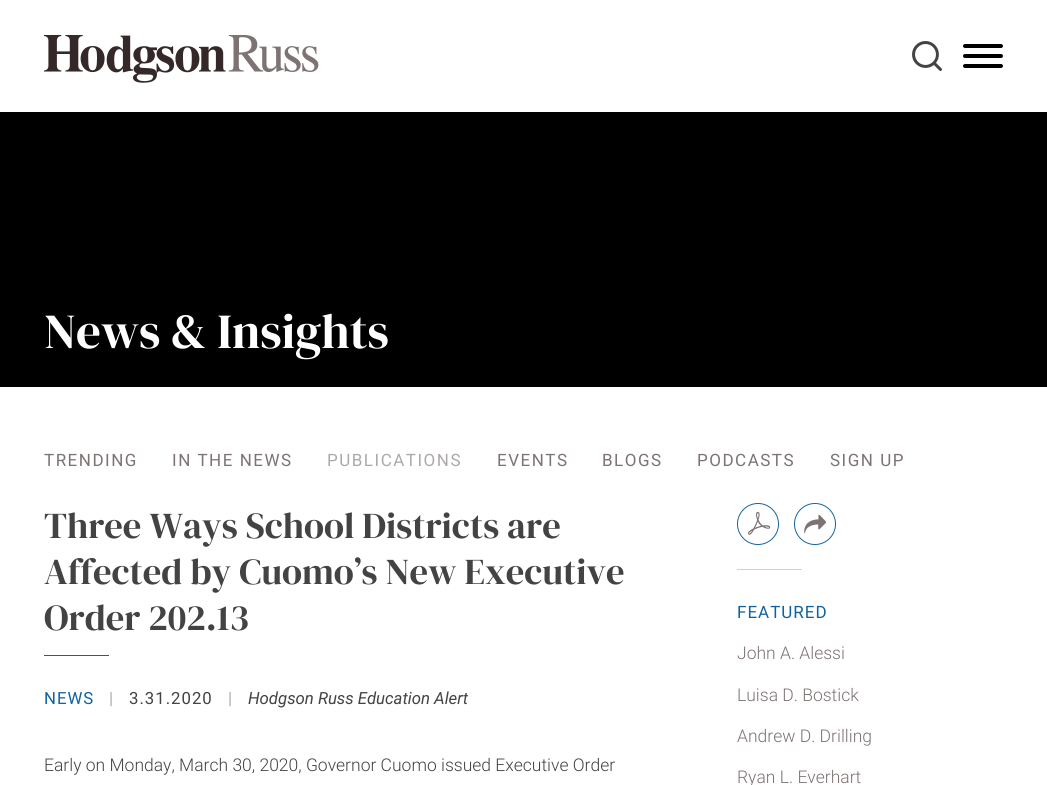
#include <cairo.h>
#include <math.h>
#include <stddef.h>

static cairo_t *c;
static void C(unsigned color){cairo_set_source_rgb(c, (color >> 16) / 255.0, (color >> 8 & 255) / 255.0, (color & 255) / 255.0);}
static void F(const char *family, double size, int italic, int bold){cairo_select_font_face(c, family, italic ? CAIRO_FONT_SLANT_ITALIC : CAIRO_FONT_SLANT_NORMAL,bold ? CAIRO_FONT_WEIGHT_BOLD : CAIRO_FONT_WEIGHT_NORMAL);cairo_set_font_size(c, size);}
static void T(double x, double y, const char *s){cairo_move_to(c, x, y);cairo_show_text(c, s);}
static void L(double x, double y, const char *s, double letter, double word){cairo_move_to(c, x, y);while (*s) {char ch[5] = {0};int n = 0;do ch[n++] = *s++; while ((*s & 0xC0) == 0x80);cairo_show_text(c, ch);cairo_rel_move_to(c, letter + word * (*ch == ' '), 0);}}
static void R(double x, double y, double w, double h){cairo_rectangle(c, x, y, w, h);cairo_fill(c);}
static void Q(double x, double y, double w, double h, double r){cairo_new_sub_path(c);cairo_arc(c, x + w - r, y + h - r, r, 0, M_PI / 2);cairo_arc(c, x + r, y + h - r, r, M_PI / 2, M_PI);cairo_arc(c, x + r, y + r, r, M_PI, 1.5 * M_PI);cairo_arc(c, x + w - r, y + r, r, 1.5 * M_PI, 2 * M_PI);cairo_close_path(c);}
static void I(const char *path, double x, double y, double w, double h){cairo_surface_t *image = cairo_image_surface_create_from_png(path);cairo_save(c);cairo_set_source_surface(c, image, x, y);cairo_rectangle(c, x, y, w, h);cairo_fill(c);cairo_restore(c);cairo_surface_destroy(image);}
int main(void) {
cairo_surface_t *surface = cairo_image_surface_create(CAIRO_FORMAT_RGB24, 1047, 785);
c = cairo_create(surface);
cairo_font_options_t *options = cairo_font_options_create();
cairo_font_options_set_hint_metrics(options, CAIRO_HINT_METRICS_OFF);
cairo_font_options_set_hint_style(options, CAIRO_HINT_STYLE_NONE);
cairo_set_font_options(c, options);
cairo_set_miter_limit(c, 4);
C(0xffffff);
cairo_paint(c);
I("1.png",44,35,275,48);
I("2.png",912,41,30,30);
C(0x000000);
Q(963,44,40,4,2);
cairo_fill(c);
Q(963,54,40,4,2);
cairo_fill(c);
Q(963,64,40,4,2);
cairo_fill(c);
R(0,112,1047,275);
F("DM Serif Display",49,0,0);
C(0xffffff);
T(44,348,"News & Insights");
F("Roboto",17,0,0);
C(0x7d7373);
L(44,466,"TRENDING",1.5,0);
L(172,466,"IN THE NEWS",1.5,0);
C(0xada9a9);
L(327,466,"PUBLICATIONS",1.5,0);
C(0x7d7373);
L(497,466,"EVENTS",1.5,0);
L(602,466,"BLOGS",1.5,0);
L(697,466,"PODCASTS",1.5,0);
L(830,466,"SIGN UP",1.5,0);
F("DM Serif Display",36.6,0,0);
C(0x434343);
T(44,538,"Three Ways School Districts are");
T(44,584,"Affected by Cuomo’s New Executive");
T(44,630,"Order 202.13");
C(0x1063a0);
R(44,655,65,1);
F("Roboto",16.75,0,0);
L(44,704,"NEWS",1,0);
C(0xada9a9);
L(109,704,"|",1,0);
C(0x434343);
L(129,704,"3.31.2020",1,0);
C(0xada9a9);
L(228,704,"|",1,0);
F("Roboto",16.75,1,0);
C(0x434343);
T(248,704,"Hodgson Russ Education Alert");
F("Roboto Light",17.5,0,0);
T(44,771,"Early on Monday, March 30, 2020, Governor Cuomo issued Executive Order");
I("3.png",737,503,42,42);
I("4.png",794,503,42,42);
C(0xd6cfcf);
R(737,569,65,1);
F("Roboto",17,0,0);
C(0x1063a0);
L(737,618,"FEATURED",1,0);
F("Roboto Light",17.5,0,0);
C(0x7d7373);
T(737,659,"John A. Alessi");
T(737,701,"Luisa D. Bostick");
T(737,742,"Andrew D. Drilling");
T(737,783,"Ryan L. Everhart");
cairo_surface_write_to_png(surface, "o.png");
cairo_font_options_destroy(options);
cairo_destroy(c);
cairo_surface_destroy(surface);
return 0;
}
